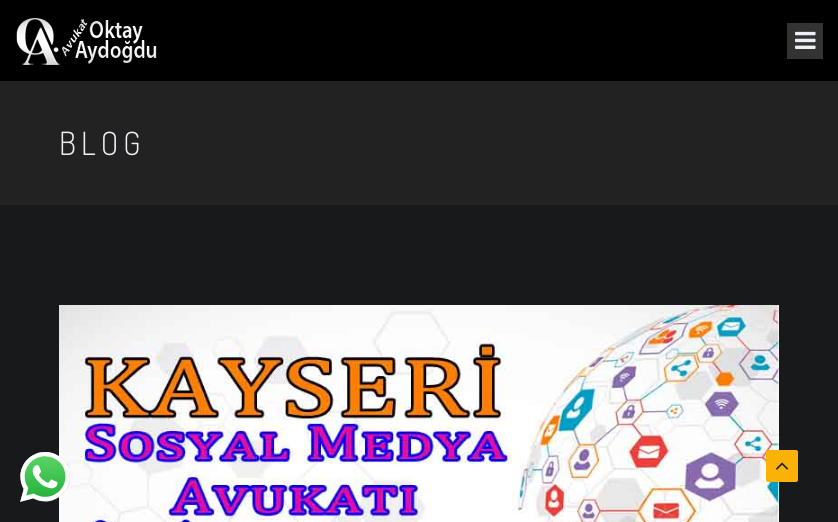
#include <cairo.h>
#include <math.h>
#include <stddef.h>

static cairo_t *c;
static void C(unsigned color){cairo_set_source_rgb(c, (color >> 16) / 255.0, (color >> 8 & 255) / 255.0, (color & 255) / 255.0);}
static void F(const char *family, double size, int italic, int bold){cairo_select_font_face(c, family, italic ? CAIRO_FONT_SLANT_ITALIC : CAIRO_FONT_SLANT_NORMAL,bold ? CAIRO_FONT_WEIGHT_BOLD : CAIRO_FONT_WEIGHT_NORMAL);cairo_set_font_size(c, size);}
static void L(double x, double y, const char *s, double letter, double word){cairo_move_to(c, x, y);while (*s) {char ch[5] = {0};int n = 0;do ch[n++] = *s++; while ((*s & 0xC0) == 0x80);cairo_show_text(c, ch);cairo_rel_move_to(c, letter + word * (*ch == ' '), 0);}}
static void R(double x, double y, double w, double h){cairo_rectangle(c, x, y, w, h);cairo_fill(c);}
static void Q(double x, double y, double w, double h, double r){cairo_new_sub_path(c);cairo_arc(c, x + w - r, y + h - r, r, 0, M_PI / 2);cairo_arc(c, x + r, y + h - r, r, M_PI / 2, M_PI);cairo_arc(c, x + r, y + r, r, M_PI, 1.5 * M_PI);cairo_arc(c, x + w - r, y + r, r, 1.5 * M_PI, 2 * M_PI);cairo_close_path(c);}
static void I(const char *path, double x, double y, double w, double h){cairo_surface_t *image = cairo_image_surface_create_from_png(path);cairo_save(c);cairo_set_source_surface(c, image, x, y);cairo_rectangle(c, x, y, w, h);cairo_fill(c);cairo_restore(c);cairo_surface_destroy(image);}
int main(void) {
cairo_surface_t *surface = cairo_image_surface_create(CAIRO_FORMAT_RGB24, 838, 522);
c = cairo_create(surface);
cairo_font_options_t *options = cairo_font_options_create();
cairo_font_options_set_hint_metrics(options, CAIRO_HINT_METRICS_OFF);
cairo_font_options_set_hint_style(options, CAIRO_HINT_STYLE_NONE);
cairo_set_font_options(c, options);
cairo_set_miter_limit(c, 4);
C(0x222222);
cairo_paint(c);
C(0x000000);
R(0,0,838,81);
I("1.png",15,18,142,47);
C(0x333333);
R(787,23,36,36);
I("2.png",795,31,21,18);
F("Dosis Light",32,0,0);
C(0xeceff3);
L(59,155,"BLOG",5,0);
C(0x18191b);
R(0,205,838,317);
I("3.png",59,305,720,217);
C(0xfab207);
Q(766,450,32,32,2);
cairo_fill(c);
I("4.png",776,462,13,8);
I("5.png",20,452,50,50);
cairo_surface_write_to_png(surface, "o.png");
cairo_font_options_destroy(options);
cairo_destroy(c);
cairo_surface_destroy(surface);
return 0;
}
